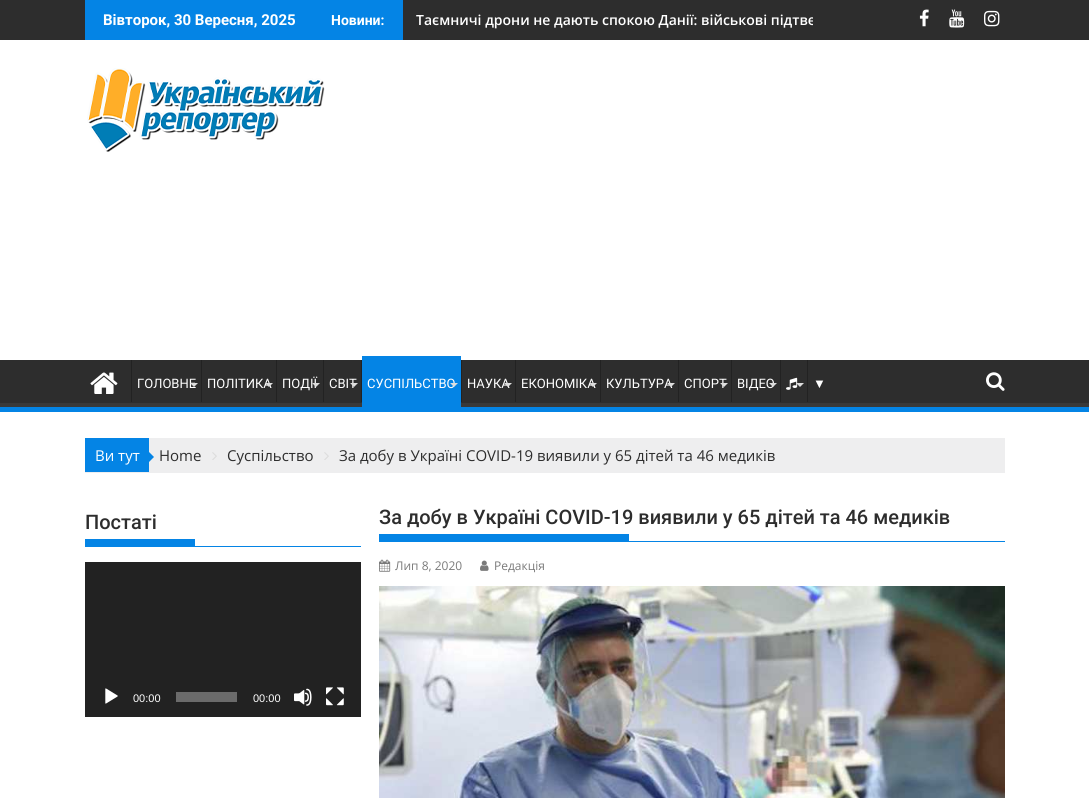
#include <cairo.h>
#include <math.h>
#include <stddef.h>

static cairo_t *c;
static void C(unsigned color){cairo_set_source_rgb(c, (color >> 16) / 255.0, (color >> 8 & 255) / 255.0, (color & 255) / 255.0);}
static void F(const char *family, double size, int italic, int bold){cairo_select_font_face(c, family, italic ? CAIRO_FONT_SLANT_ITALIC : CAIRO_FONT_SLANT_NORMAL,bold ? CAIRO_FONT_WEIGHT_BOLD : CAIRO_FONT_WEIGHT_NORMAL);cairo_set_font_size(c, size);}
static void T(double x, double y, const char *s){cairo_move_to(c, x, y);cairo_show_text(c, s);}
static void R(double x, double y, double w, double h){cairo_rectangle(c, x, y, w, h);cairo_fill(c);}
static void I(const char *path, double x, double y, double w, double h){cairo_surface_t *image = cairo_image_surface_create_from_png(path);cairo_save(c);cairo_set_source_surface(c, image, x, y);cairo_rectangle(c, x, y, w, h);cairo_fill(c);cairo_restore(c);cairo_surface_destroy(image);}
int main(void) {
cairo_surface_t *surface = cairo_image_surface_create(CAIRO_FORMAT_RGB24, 1089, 798);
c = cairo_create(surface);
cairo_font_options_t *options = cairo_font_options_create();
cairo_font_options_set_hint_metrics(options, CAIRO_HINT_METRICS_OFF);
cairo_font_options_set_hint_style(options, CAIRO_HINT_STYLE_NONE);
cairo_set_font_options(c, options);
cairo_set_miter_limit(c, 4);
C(0xffffff);
cairo_paint(c);
C(0x2d2d2d);
R(0,0,1089,40);
C(0x0484e5);
R(85,0,318,40);
F("Roboto",15,0,1);
C(0xffffff);
T(103,25,"Вівторок, 30 Вересня, 2025");
F("Roboto",14,0,1);
T(331,25,"Новини:");
cairo_save(c);
cairo_rectangle(c,403,0,410,40);
cairo_clip(c);
F("Open Sans SemiBold",14,0,0);
T(416,25,"Таємничі дрони не дають спокою Данії: військові підтве");
cairo_restore(c);
I("1.png",919,9,10,18);
I("2.png",949,9,16,19);
I("3.png",984,10,16,17);
I("4.png",87,68,238,84);
C(0x2d2d2d);
R(0,360,1089,43);
cairo_save(c);
cairo_rectangle(c,0,360,1089,47);
cairo_clip(c);
C(0x393939);
cairo_set_fill_rule(c,CAIRO_FILL_RULE_EVEN_ODD);
cairo_new_path(c);
cairo_move_to(c,-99,261);
cairo_line_to(c,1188,261);
cairo_line_to(c,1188,506);
cairo_line_to(c,-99,506);
cairo_close_path(c);
cairo_move_to(c,-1,354);
cairo_line_to(c,1088,354);
cairo_curve_to(c,1089,354,1089,354,1089,355);
cairo_line_to(c,1089,402);
cairo_curve_to(c,1089,403,1089,403,1088,403);
cairo_line_to(c,-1,403);
cairo_curve_to(c,-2,403,-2,403,-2,402);
cairo_line_to(c,-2,355);
cairo_curve_to(c,-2,354,-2,354,-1,354);
cairo_close_path(c);
cairo_fill(c);
cairo_restore(c);
C(0x0484e5);
R(0,407,1089,5);
I("5.png",90,372,28,22);
C(0x222222);
R(131,360,1,42);
F("Roboto",13,0,0);
C(0xffffff);
T(137,388,"ГОЛОВНЕ");
C(0xdddddd);
cairo_new_path(c);
cairo_move_to(c,190,383);
cairo_line_to(c,198,383);
cairo_line_to(c,194,387);
cairo_close_path(c);
cairo_fill(c);
C(0x222222);
R(201,360,1,42);
C(0xffffff);
T(207,388,"ПОЛІТИКА");
C(0xdddddd);
cairo_new_path(c);
cairo_move_to(c,265,383);
cairo_line_to(c,273,383);
cairo_line_to(c,269,387);
cairo_close_path(c);
cairo_fill(c);
C(0x222222);
R(276,360,1,42);
C(0xffffff);
T(282,388,"ПОДІЇ");
C(0xdddddd);
cairo_new_path(c);
cairo_move_to(c,312,383);
cairo_line_to(c,320,383);
cairo_line_to(c,316,387);
cairo_close_path(c);
cairo_fill(c);
C(0x222222);
R(323,360,1,42);
C(0xffffff);
T(329,388,"СВІТ");
C(0xdddddd);
cairo_new_path(c);
cairo_move_to(c,350,383);
cairo_line_to(c,358,383);
cairo_line_to(c,354,387);
cairo_close_path(c);
cairo_fill(c);
C(0x222222);
R(361,360,1,42);
C(0x0484e5);
R(362,356,99,51);
C(0xffffff);
T(367,388,"СУСПІЛЬСТВО");
C(0xdddddd);
cairo_new_path(c);
cairo_move_to(c,450,383);
cairo_line_to(c,458,383);
cairo_line_to(c,454,387);
cairo_close_path(c);
cairo_fill(c);
C(0x222222);
R(461,360,1,42);
C(0xffffff);
T(467,388,"НАУКА");
C(0xdddddd);
cairo_new_path(c);
cairo_move_to(c,504,383);
cairo_line_to(c,512,383);
cairo_line_to(c,508,387);
cairo_close_path(c);
cairo_fill(c);
C(0x222222);
R(515,360,1,42);
C(0xffffff);
T(521,388,"ЕКОНОМІКА");
C(0xdddddd);
cairo_new_path(c);
cairo_move_to(c,589,383);
cairo_line_to(c,597,383);
cairo_line_to(c,593,387);
cairo_close_path(c);
cairo_fill(c);
C(0x222222);
R(600,360,1,42);
C(0xffffff);
T(606,388,"КУЛЬТУРА");
C(0xdddddd);
cairo_new_path(c);
cairo_move_to(c,667,383);
cairo_line_to(c,675,383);
cairo_line_to(c,671,387);
cairo_close_path(c);
cairo_fill(c);
C(0x222222);
R(678,360,1,42);
C(0xffffff);
T(684,388,"СПОРТ");
C(0xdddddd);
cairo_new_path(c);
cairo_move_to(c,720,383);
cairo_line_to(c,728,383);
cairo_line_to(c,724,387);
cairo_close_path(c);
cairo_fill(c);
C(0x222222);
R(731,360,1,42);
C(0xffffff);
T(737,388,"ВІДЕО");
C(0xdddddd);
cairo_new_path(c);
cairo_move_to(c,769,383);
cairo_line_to(c,777,383);
cairo_line_to(c,773,387);
cairo_close_path(c);
cairo_fill(c);
C(0x222222);
R(780,360,1,42);
I("6.png",786,377,12,13);
C(0xdddddd);
cairo_new_path(c);
cairo_move_to(c,796,383);
cairo_line_to(c,804,383);
cairo_line_to(c,800,387);
cairo_close_path(c);
cairo_fill(c);
C(0x222222);
R(807,360,1,42);
F("Liberation Sans",13,0,0);
C(0xffffff);
T(813,388,"▼");
I("7.png",986,372,19,19);
C(0xeeeeef);
R(85,438,920,35);
C(0x0484e5);
R(85,438,64,34);
F("Open Sans",15,0,0);
C(0xffffff);
T(95,461,"Ви тут");
C(0x0484e5);
cairo_new_path(c);
cairo_move_to(c,149,462);
cairo_line_to(c,149,452);
cairo_line_to(c,154,457);
cairo_close_path(c);
cairo_fill(c);
C(0x2d2d2d);
T(159,461,"Home");
I("8.png",212,452,5,8);
T(227,461,"Суспільство");
I("8.png",324,452,5,8);
T(339,461,"За добу в Україні COVID-19 виявили у 65 дітей та 46 медиків");
C(0x0484e5);
R(85,546,276,1);
F("Roboto Medium",20,0,0);
C(0x2d2d2d);
T(85,529,"Постаті");
C(0x0484e5);
R(85,539,110,7);
C(0x222222);
R(85,562,276,155);
I("9.png",105,688,13,16);
F("Liberation Sans",11,0,0);
C(0xffffff);
T(133,702,"00:00");
C(0x6b6b6b);
R(176,692,61,10);
C(0xffffff);
T(253,702,"00:00");
I("10.png",294,688,18,18);
I("11.png",326,687,18,19);
C(0x0484e5);
R(379,541,626,1);
F("Roboto Medium",20,0,0);
C(0x2d2d2d);
T(379,524,"За добу в Україні COVID-19 виявили у 65 дітей та 46 медиків");
C(0x0484e5);
R(379,534,250,7);
I("12.png",379,559,12,13);
F("Open Sans",12,0,0);
C(0x7a7a7a);
T(395,570,"Лип 8, 2020");
I("13.png",480,560,9,11);
T(494,570,"Редакція");
I("14.png",379,586,626,212);
cairo_surface_write_to_png(surface, "o.png");
cairo_font_options_destroy(options);
cairo_destroy(c);
cairo_surface_destroy(surface);
return 0;
}
